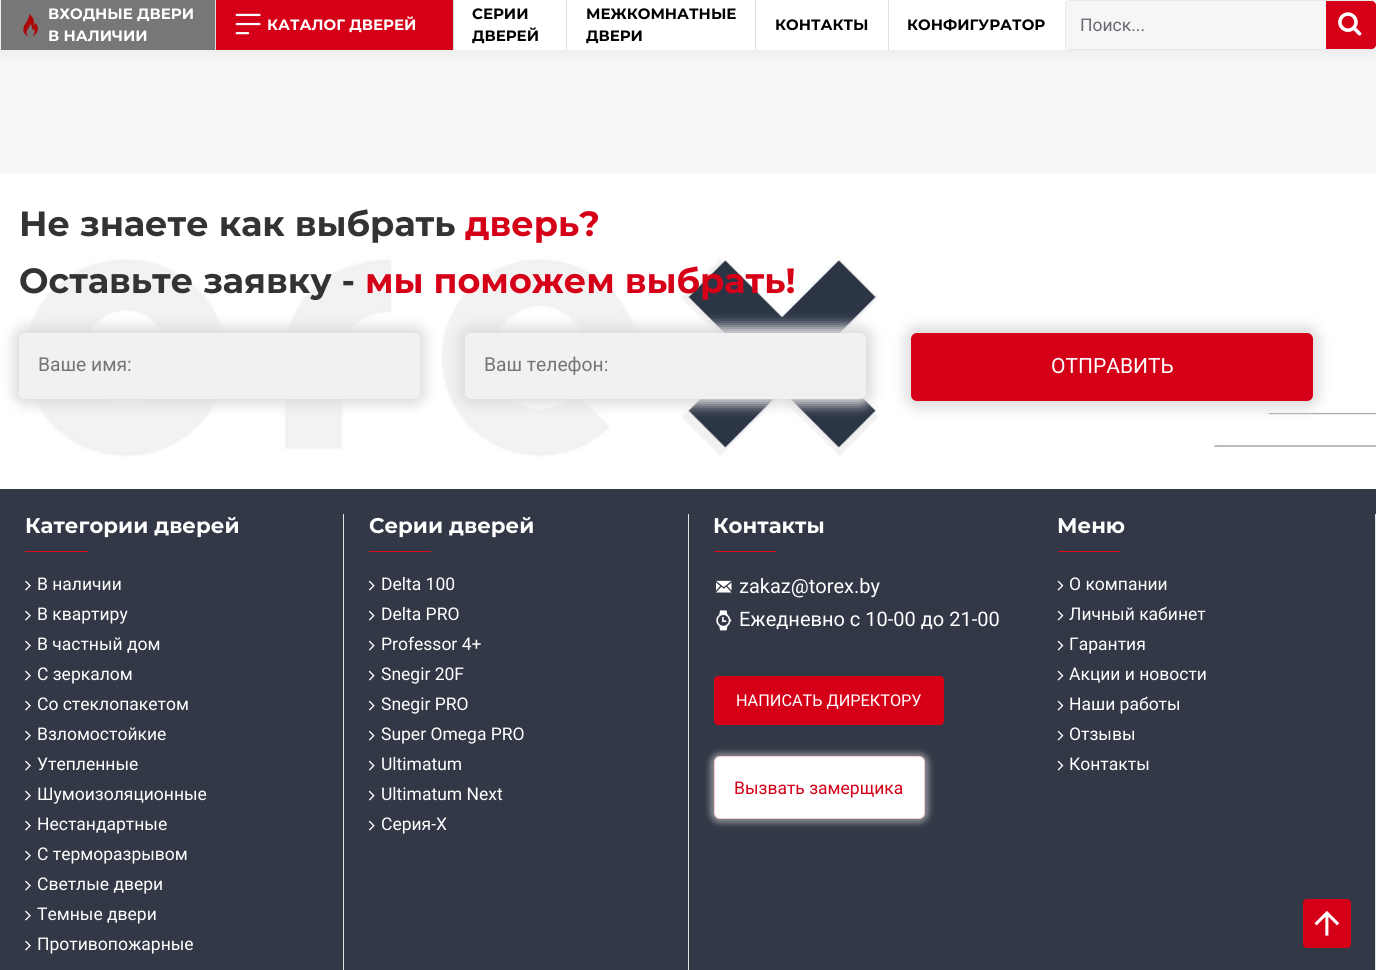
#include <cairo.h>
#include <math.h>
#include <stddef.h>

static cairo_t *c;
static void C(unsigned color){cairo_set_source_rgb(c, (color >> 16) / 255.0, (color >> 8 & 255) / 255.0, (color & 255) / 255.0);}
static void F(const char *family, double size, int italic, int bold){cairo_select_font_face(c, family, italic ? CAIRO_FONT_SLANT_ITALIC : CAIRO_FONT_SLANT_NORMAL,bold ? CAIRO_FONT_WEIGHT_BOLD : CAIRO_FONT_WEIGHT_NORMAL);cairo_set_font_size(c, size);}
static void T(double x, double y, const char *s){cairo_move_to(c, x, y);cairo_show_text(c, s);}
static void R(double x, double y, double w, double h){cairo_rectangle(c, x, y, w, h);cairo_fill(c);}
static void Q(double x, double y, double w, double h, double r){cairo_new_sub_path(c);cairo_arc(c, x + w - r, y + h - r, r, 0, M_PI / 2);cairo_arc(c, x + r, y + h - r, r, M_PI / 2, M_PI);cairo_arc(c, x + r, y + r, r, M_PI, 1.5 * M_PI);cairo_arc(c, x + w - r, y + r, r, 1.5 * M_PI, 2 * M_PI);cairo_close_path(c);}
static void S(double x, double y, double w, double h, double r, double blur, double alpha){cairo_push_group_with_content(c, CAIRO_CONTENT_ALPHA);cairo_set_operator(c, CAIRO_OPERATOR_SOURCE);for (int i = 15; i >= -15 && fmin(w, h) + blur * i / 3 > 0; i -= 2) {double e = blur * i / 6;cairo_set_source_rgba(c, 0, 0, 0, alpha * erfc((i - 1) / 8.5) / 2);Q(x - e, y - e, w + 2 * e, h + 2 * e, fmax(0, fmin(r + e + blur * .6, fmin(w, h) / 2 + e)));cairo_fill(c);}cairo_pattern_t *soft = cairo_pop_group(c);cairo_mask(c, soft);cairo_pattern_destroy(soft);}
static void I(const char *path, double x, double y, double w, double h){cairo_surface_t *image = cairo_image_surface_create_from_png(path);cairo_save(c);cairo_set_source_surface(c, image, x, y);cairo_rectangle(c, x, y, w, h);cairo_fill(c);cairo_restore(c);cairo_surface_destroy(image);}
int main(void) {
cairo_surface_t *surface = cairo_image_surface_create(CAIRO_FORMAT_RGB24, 1376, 970);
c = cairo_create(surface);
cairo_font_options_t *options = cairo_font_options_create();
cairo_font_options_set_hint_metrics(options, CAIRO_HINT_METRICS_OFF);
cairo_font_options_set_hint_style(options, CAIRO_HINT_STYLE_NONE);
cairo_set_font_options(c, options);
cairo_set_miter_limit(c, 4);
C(0xf8f8f8);
cairo_paint(c);
C(0xdddddd);
S(-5,-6,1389,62,0,6,.4);
C(0xffffff);
R(454,0,922,50);
C(0x777777);
R(1,0,214,50);
I("1.png",23,14,15,23);
F("Montserrat",15,0,1);
C(0xffffff);
T(48,19,"ВХОДНЫЕ ДВЕРИ");
T(48,41,"В НАЛИЧИИ");
C(0xd50018);
R(216,0,237,50);
C(0xdedede);
R(215,0,1,50);
I("2.png",235,13,26,22);
C(0xffffff);
T(267,30,"КАТАЛОГ ДВЕРЕЙ");
C(0xdedede);
R(453,0,1,50);
C(0x000000);
T(472,19,"СЕРИИ");
T(472,41,"ДВЕРЕЙ");
C(0xdedede);
R(566,0,1,50);
C(0x000000);
T(586,19,"МЕЖКОМНАТНЫЕ");
T(586,41,"ДВЕРИ");
C(0xdedede);
R(755,0,1,50);
C(0x000000);
T(775,30,"КОНТАКТЫ");
C(0xdedede);
R(888,0,1,50);
C(0x000000);
T(907,30,"КОНФИГУРАТОР");
Q(1065.5,.5,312,49,3.5);
C(0xe8e8e8);
cairo_set_line_width(c,1);
cairo_stroke(c);
C(0xf6f6f6);
cairo_new_path(c);
cairo_move_to(c,1070,1);
cairo_line_to(c,1326,1);
cairo_line_to(c,1326,49);
cairo_line_to(c,1070,49);
cairo_curve_to(c,1068,49,1066,47,1066,45);
cairo_line_to(c,1066,5);
cairo_curve_to(c,1066,3,1068,1,1070,1);
cairo_close_path(c);
cairo_fill(c);
F("Roboto",17.5,0,0);
C(0x696973);
T(1080,31,"Поиск...");
C(0xd50018);
cairo_new_path(c);
cairo_move_to(c,1326,1);
cairo_line_to(c,1372,1);
cairo_curve_to(c,1374,1,1376,3,1376,5);
cairo_line_to(c,1376,45);
cairo_curve_to(c,1376,47,1374,49,1372,49);
cairo_line_to(c,1326,49);
cairo_close_path(c);
cairo_fill(c);
I("3.png",1338,12,24,24);
I("4.png",0,174,1376,315);
F("Montserrat",35,0,1);
C(0x333333);
T(19,236,"Не знаете как выбрать");
C(0xd50018);
T(465,236,"дверь?");
C(0x333333);
T(19,293,"Оставьте заявку -");
C(0xd50018);
T(365,293,"мы поможем выбрать!");
C(0xdddddd);
S(13,326,413,79,13,6,1);
C(0xf1f1f1);
Q(19,333,401,66,6);
cairo_fill(c);
F("Roboto",19.25,0,0);
C(0x757575);
T(38,371,"Ваше имя:");
C(0xdddddd);
S(459,326,414,79,13,6,1);
C(0xf1f1f1);
Q(465,333,401,66,6);
cairo_fill(c);
C(0x757575);
T(484,371,"Ваш телефон:");
C(0xdddddd);
S(905,326,414,82,13,6,1);
C(0xd50018);
Q(911,333,402,68,6);
cairo_fill(c);
F("Roboto",21,0,0);
C(0xffffff);
T(1051,373,"ОТПРАВИТЬ");
C(0x323846);
R(0,489,1376,481);
C(0xe2e2e2);
R(343,514,1,456);
F("Montserrat",21.25,0,1);
C(0xffffff);
T(25,533,"Категории дверей");
C(0xdd0e1c);
R(25,551,63,1);
I("5.png",25,580,6,11);
F("Roboto",17.5,0,0);
C(0xffffff);
T(37,590,"В наличии");
I("5.png",25,610,6,11);
T(37,620,"В квартиру");
I("5.png",25,640,6,11);
T(37,650,"В частный дом");
I("5.png",25,670,6,11);
T(37,680,"С зеркалом");
I("5.png",25,700,6,11);
T(37,710,"Со стеклопакетом");
I("5.png",25,730,6,11);
T(37,740,"Взломостойкие");
I("5.png",25,760,6,11);
T(37,770,"Утепленные");
I("5.png",25,790,6,11);
T(37,800,"Шумоизоляционные");
I("5.png",25,820,6,11);
T(37,830,"Нестандартные");
I("5.png",25,850,6,11);
T(37,860,"С терморазрывом");
I("5.png",25,880,6,11);
T(37,890,"Светлые двери");
I("5.png",25,910,6,11);
T(37,920,"Темные двери");
I("5.png",25,940,6,11);
T(37,950,"Противопожарные");
C(0xe2e2e2);
R(688,514,1,456);
F("Montserrat",21.25,0,1);
C(0xffffff);
T(369,533,"Серии дверей");
C(0xdd0e1c);
R(369,551,62,1);
I("6.png",368,580,7,11);
F("Roboto",17.5,0,0);
C(0xffffff);
T(381,590,"Delta 100");
I("6.png",368,610,7,11);
T(381,620,"Delta PRO");
I("6.png",368,640,7,11);
T(381,650,"Professor 4+");
I("6.png",368,670,7,11);
T(381,680,"Snegir 20F");
I("6.png",368,700,7,11);
T(381,710,"Snegir PRO");
I("6.png",368,730,7,11);
T(381,740,"Super Omega PRO");
I("6.png",368,760,7,11);
T(381,770,"Ultimatum");
I("6.png",368,790,7,11);
T(381,800,"Ultimatum Next");
I("6.png",368,820,7,11);
T(381,830,"Серия-X");
F("Montserrat",21.25,0,1);
T(713,533,"Контакты");
C(0xdd0e1c);
R(714,551,62,1);
I("7.png",715,580,17,13);
F("Roboto",20,0,0);
C(0xffffff);
T(739,593,"zakaz@torex.by");
I("8.png",716,610,16,21);
T(739,626,"Ежедневно с 10-00 до 21-00");
C(0xd50018);
Q(714,676,230,49,4);
cairo_fill(c);
F("Roboto",16.25,0,0);
C(0xffffff);
T(736,706,"НАПИСАТЬ ДИРЕКТОРУ");
C(0xdddddd);
S(710,753,219,70,10,3,.5);
C(0xffffff);
Q(714,756,211,63,6);
cairo_fill(c);
Q(714.5,756.5,210,62,5.5);
cairo_set_source_rgba(c,0.835,0,0.094,0.21);
cairo_stroke(c);
F("Roboto",17.5,0,0);
C(0xd50018);
T(734,794,"Вызвать замерщика");
C(0xe2e2e2);
R(1375,514,1,456);
F("Montserrat",21.25,0,1);
C(0xffffff);
T(1057,533,"Меню");
C(0xdd0e1c);
R(1058,551,62,1);
I("9.png",1057,580,7,11);
F("Roboto",17.5,0,0);
C(0xffffff);
T(1069,590,"О компании");
I("9.png",1057,610,7,11);
T(1069,620,"Личный кабинет");
I("9.png",1057,640,7,11);
T(1069,650,"Гарантия");
I("9.png",1057,670,7,11);
T(1069,680,"Акции и новости");
I("9.png",1057,700,7,11);
T(1069,710,"Наши работы");
I("9.png",1057,730,7,11);
T(1069,740,"Отзывы");
I("9.png",1057,760,7,11);
T(1069,770,"Контакты");
C(0xd50018);
Q(1303,899,48,49,4);
cairo_fill(c);
I("10.png",1314,911,26,25);
cairo_surface_write_to_png(surface, "o.png");
cairo_font_options_destroy(options);
cairo_destroy(c);
cairo_surface_destroy(surface);
return 0;
}
